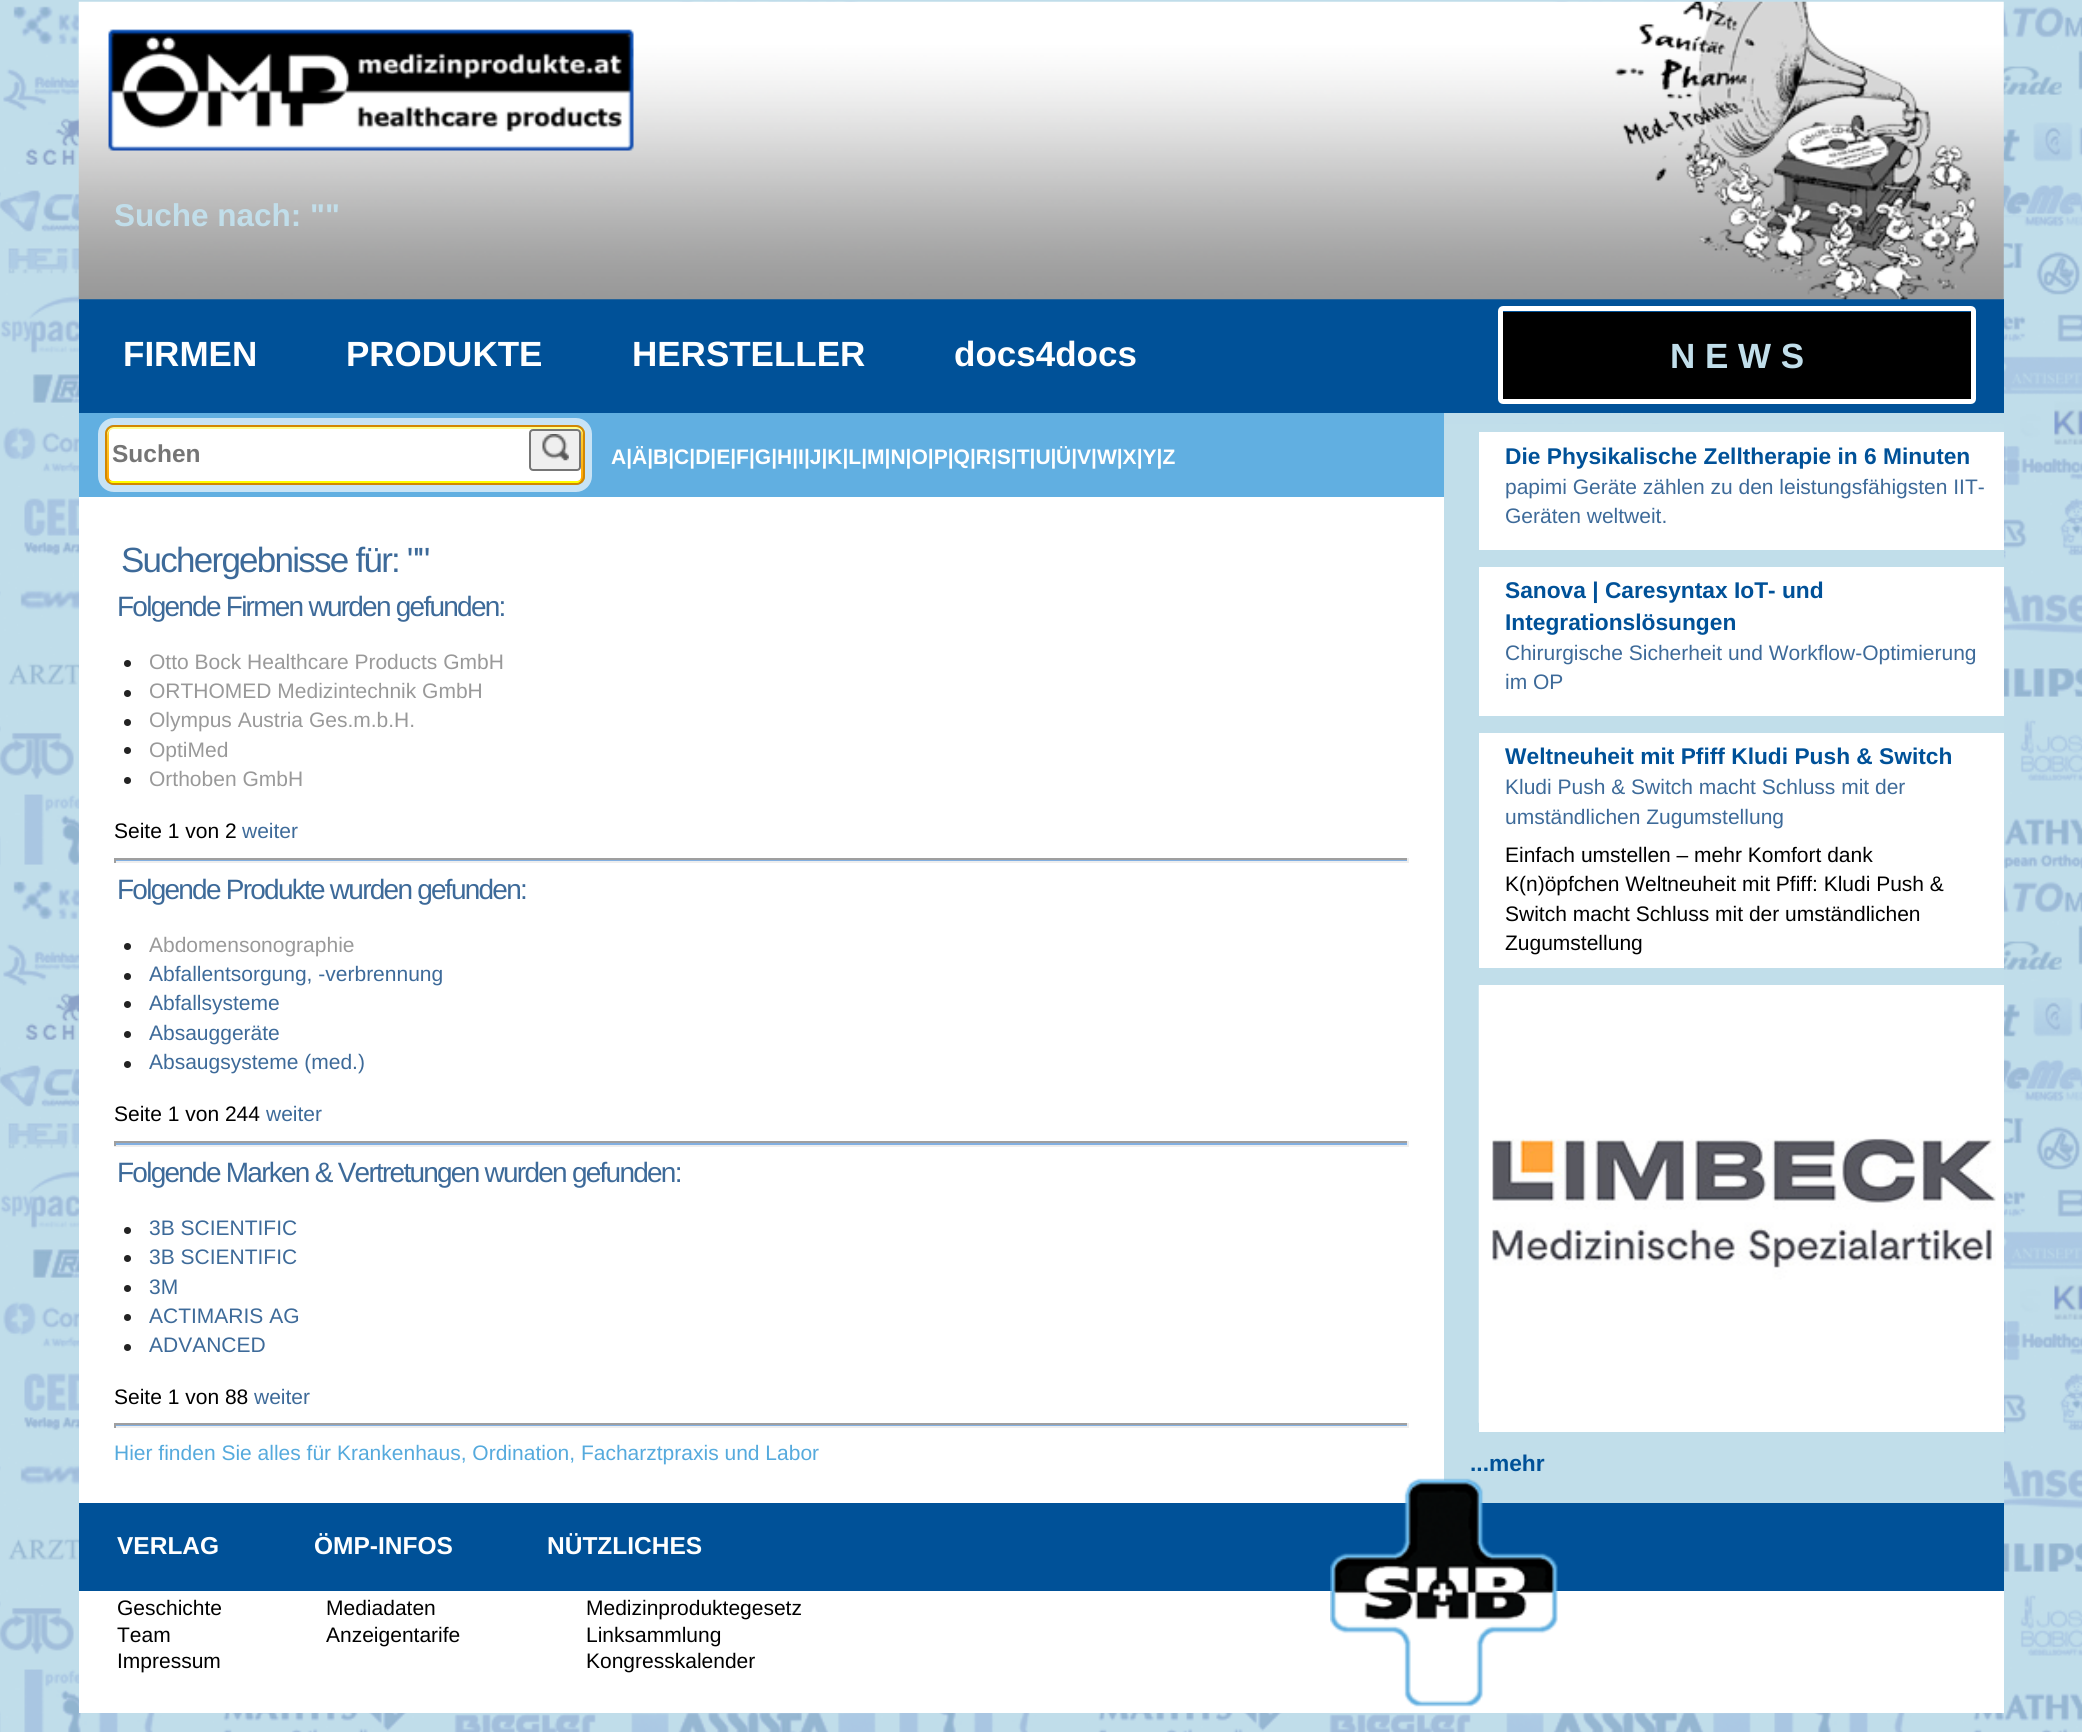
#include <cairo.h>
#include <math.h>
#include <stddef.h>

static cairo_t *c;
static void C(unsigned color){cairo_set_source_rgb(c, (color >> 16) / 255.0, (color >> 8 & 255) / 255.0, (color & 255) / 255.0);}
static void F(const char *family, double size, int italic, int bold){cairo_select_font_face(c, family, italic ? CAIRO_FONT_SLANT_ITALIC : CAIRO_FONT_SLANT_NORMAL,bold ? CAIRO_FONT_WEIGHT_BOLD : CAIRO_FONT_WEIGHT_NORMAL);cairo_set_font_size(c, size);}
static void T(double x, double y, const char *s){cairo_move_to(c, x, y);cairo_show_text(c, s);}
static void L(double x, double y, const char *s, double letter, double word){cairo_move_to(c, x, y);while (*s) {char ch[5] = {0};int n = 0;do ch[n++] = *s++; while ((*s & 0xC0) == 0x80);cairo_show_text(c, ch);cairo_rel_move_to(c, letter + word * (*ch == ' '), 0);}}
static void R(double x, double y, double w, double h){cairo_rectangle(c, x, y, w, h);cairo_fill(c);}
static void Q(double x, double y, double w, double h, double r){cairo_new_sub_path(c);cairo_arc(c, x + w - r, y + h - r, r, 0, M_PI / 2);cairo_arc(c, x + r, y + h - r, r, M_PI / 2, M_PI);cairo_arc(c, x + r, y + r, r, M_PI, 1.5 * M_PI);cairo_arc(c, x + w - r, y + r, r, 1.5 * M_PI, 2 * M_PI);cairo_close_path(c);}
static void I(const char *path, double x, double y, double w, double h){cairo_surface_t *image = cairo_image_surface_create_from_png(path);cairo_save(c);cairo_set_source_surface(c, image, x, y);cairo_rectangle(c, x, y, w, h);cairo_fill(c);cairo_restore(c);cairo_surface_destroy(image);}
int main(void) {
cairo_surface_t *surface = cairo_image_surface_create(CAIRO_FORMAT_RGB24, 2082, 1732);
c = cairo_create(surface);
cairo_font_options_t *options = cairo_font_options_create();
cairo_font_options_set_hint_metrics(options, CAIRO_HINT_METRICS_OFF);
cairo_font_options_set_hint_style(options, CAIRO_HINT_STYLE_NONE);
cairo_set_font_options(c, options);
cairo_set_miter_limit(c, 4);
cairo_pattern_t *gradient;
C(0xffffff);
cairo_paint(c);
I("1.png",0,0,2082,1732);
C(0x005198);
R(79,299,1925,114);
I("2.png",78,1,1926,299);
F("Liberation Sans",31.5,0,1);
C(0xc1deea);
T(114,226,"Suche nach: \"\"");
F("Liberation Sans",35,0,1);
C(0xffffff);
T(123,366,"FIRMEN");
T(346,366,"PRODUKTE");
T(632,366,"HERSTELLER");
T(954,366,"docs4docs");
Q(1500.5,308.5,473,93,2.5);
cairo_set_line_width(c,5);
cairo_stroke(c);
C(0x000000);
R(1503,312,468,87);
C(0xc1deea);
T(1670,368,"N E W S");
C(0xffffff);
R(79,497,1365,1006);
C(0x61afe1);
R(79,413,1365,84);
Q(101.5,421.5,487,67,12.5);
C(0xc8e3f5);
cairo_set_line_width(c,7);
cairo_stroke(c);
cairo_save(c);
Q(105,425,480,60,9);
cairo_clip(c);
gradient = cairo_pattern_create_linear(107,427,107,483);
cairo_pattern_add_color_stop_rgba(gradient,0,1,0.843,0.227,1);
cairo_pattern_add_color_stop_rgba(gradient,1,1,0.647,0,1);
cairo_set_source(c,gradient);
cairo_pattern_destroy(gradient);
R(105,427,480,56);
cairo_restore(c);
C(0xffff90);
cairo_new_path(c);
cairo_move_to(c,114,429);
cairo_line_to(c,576,429);
cairo_curve_to(c,580,429,583,432,583,436);
cairo_line_to(c,583,434);
cairo_curve_to(c,583,430,580,427,576,427);
cairo_line_to(c,114,427);
cairo_curve_to(c,110,427,107,430,107,434);
cairo_line_to(c,107,436);
cairo_curve_to(c,107,432,110,429,114,429);
cairo_close_path(c);
cairo_fill(c);
Q(106,426,478,58,8);
C(0xd28703);
cairo_set_line_width(c,2);
cairo_stroke(c);
C(0xffff00);
cairo_new_path(c);
cairo_move_to(c,109,480);
cairo_curve_to(c,109,482,111,483,113,483);
cairo_line_to(c,577,483);
cairo_curve_to(c,579,483,581,481,581,479);
cairo_line_to(c,581,478);
cairo_curve_to(c,581,480,579,481,578,481);
cairo_line_to(c,112,481);
cairo_curve_to(c,111,481,110,481,109,480);
cairo_close_path(c);
cairo_fill(c);
C(0xffffff);
Q(109,429,472,52,4);
cairo_fill(c);
F("Liberation Sans",24.5,0,1);
C(0x757575);
T(112,462,"Suchen");
C(0xefefef);
Q(530,430,50,40,3);
cairo_fill_preserve(c);
C(0x767676);
cairo_stroke(c);
I("3.png",542,434,27,27);
F("Liberation Sans",21,0,1);
C(0xffffff);
T(611,464,"A|Ä|B|C|D|E|F|G|H|I|J|K|L|M|N|O|P|Q|R|S|T|U|");
T(1056,464,"Ü|V|W|X|Y|Z");
F("Liberation Sans",35,0,0);
C(0x3d6a99);
L(121,572,"Suchergebnisse für: \"\"",-1.75,0);
F("Liberation Sans",28,0,0);
L(117,616,"Folgende Firmen wurden gefunden:",-1.75,0);
C(0x232323);
cairo_new_path(c);
cairo_arc(c,127.5,663.5,3.5,0,2 * M_PI);
cairo_fill(c);
F("Liberation Sans",21,0,0);
C(0x999999);
T(149,669,"Otto Bock Healthcare Products GmbH");
C(0x232323);
cairo_new_path(c);
cairo_arc(c,127.5,693.5,3.5,0,2 * M_PI);
cairo_fill(c);
C(0x999999);
T(149,698,"ORTHOMED Medizintechnik GmbH");
C(0x232323);
cairo_new_path(c);
cairo_arc(c,127.5,722.5,3.5,0,2 * M_PI);
cairo_fill(c);
C(0x999999);
T(149,727,"Olympus Austria Ges.m.b.H.");
C(0x232323);
cairo_new_path(c);
cairo_arc(c,127.5,750.5,3.5,0,2 * M_PI);
cairo_fill(c);
C(0x999999);
T(149,757,"OptiMed");
C(0x232323);
cairo_new_path(c);
cairo_arc(c,127.5,780.5,3.5,0,2 * M_PI);
cairo_fill(c);
C(0x999999);
T(149,786,"Orthoben GmbH");
C(0x000000);
T(114,838,"Seite 1 von 2");
C(0x3d6a99);
T(242,838,"weiter");
C(0x82afe1);
R(114,860,1295,1);
C(0x9f9f9f);
R(114,858,1295,2);
C(0xeeeeee);
R(1407,858,2,5);
R(114,861,1295,2);
C(0x9f9f9f);
R(114,858,2,5);
F("Liberation Sans",28,0,0);
C(0x3d6a99);
L(117,899,"Folgende Produkte wurden gefunden:",-1.75,0);
C(0x232323);
cairo_new_path(c);
cairo_arc(c,127.5,946.5,3.5,0,2 * M_PI);
cairo_fill(c);
F("Liberation Sans",21,0,0);
C(0x999999);
T(149,952,"Abdomensonographie");
C(0x232323);
cairo_new_path(c);
cairo_arc(c,127.5,976.5,3.5,0,2 * M_PI);
cairo_fill(c);
C(0x3d6a99);
T(149,981,"Abfallentsorgung, -verbrennung");
C(0x232323);
cairo_new_path(c);
cairo_arc(c,127.5,1004.5,3.5,0,2 * M_PI);
cairo_fill(c);
C(0x3d6a99);
T(149,1010,"Abfallsysteme");
C(0x232323);
cairo_new_path(c);
cairo_arc(c,127.5,1034.5,3.5,0,2 * M_PI);
cairo_fill(c);
C(0x3d6a99);
T(149,1040,"Absauggeräte");
C(0x232323);
cairo_new_path(c);
cairo_arc(c,127.5,1064.5,3.5,0,2 * M_PI);
cairo_fill(c);
C(0x3d6a99);
T(149,1069,"Absaugsysteme (med.)");
C(0x000000);
T(114,1121,"Seite 1 von 244");
C(0x3d6a99);
T(266,1121,"weiter");
C(0x82afe1);
R(114,1143,1295,2);
C(0x9f9f9f);
R(114,1141,1295,2);
C(0xeeeeee);
R(1407,1141,2,5);
R(114,1145,1295,2);
C(0x9f9f9f);
R(114,1141,2,5);
F("Liberation Sans",28,0,0);
C(0x3d6a99);
L(117,1182,"Folgende Marken & Vertretungen wurden gefunden:",-1.75,0);
C(0x232323);
cairo_new_path(c);
cairo_arc(c,127.5,1230.5,3.5,0,2 * M_PI);
cairo_fill(c);
F("Liberation Sans",21,0,0);
C(0x3d6a99);
T(149,1235,"3B SCIENTIFIC");
C(0x232323);
cairo_new_path(c);
cairo_arc(c,127.5,1258.5,3.5,0,2 * M_PI);
cairo_fill(c);
C(0x3d6a99);
T(149,1264,"3B SCIENTIFIC");
C(0x232323);
cairo_new_path(c);
cairo_arc(c,127.5,1288.5,3.5,0,2 * M_PI);
cairo_fill(c);
C(0x3d6a99);
T(149,1294,"3M");
C(0x232323);
cairo_new_path(c);
cairo_arc(c,127.5,1317.5,3.5,0,2 * M_PI);
cairo_fill(c);
C(0x3d6a99);
T(149,1323,"ACTIMARIS AG");
C(0x232323);
cairo_new_path(c);
cairo_arc(c,127.5,1347.5,3.5,0,2 * M_PI);
cairo_fill(c);
C(0x3d6a99);
T(149,1352,"ADVANCED");
C(0x000000);
T(114,1404,"Seite 1 von 88");
C(0x3d6a99);
T(254,1404,"weiter");
C(0x82afe1);
R(114,1425,1295,1);
C(0x9f9f9f);
R(114,1423,1295,2);
C(0xeeeeee);
R(1407,1423,2,5);
R(114,1426,1295,2);
C(0x9f9f9f);
R(114,1423,2,5);
C(0x55aadd);
T(114,1460,"Hier finden Sie alles für Krankenhaus, Ordination, Facharztpraxis und Labor");
C(0xc1deea);
R(1444,424,560,1079);
C(0xffffff);
R(1479,432,525,118);
F("Liberation Sans",22.75,0,1);
C(0x005198);
T(1505,464,"Die Physikalische Zelltherapie in 6 Minuten");
F("Liberation Sans",21,0,0);
C(0x3d6a99);
T(1505,494,"papimi Geräte zählen zu den leistungsfähigsten IIT-");
T(1505,523,"Geräten weltweit.");
C(0xffffff);
R(1479,567,525,149);
F("Liberation Sans",22.75,0,1);
C(0x005198);
T(1505,598,"Sanova | Caresyntax IoT- und");
T(1505,630,"Integrationslösungen");
F("Liberation Sans",21,0,0);
C(0x3d6a99);
T(1505,660,"Chirurgische Sicherheit und Workflow-Optimierung");
T(1505,689,"im OP");
C(0xffffff);
R(1479,733,525,235);
F("Liberation Sans",22.75,0,1);
C(0x005198);
T(1505,764,"Weltneuheit mit Pfiff Kludi Push & Switch");
F("Liberation Sans",21,0,0);
C(0x3d6a99);
T(1505,794,"Kludi Push & Switch macht Schluss mit der");
T(1505,824,"umständlichen Zugumstellung");
C(0x000000);
T(1505,862,"Einfach umstellen – mehr Komfort dank");
T(1505,891,"K(n)öpfchen Weltneuheit mit Pfiff: Kludi Push &");
T(1505,921,"Switch macht Schluss mit der umständlichen");
T(1505,950,"Zugumstellung");
C(0xffffff);
R(1479,985,525,447);
I("4.png",1478,985,518,438);
F("Liberation Sans",22.75,0,1);
C(0x005198);
T(1470,1471,"...mehr");
R(79,1503,1925,88);
F("Liberation Sans",24.5,0,1);
C(0xffffff);
T(117,1554,"VERLAG");
T(314,1554,"ÖMP-INFOS");
T(547,1554,"NÜTZLICHES");
R(79,1591,1925,122);
I("5.png",1330,1478,228,229);
F("Liberation Sans",21,0,0);
C(0x000000);
T(117,1615,"Geschichte");
T(117,1642,"Team");
T(117,1668,"Impressum");
T(326,1615,"Mediadaten");
T(326,1642,"Anzeigentarife");
T(586,1615,"Medizinproduktegesetz");
T(586,1642,"Linksammlung");
T(586,1668,"Kongresskalender");
cairo_surface_write_to_png(surface, "o.png");
cairo_font_options_destroy(options);
cairo_destroy(c);
cairo_surface_destroy(surface);
return 0;
}
